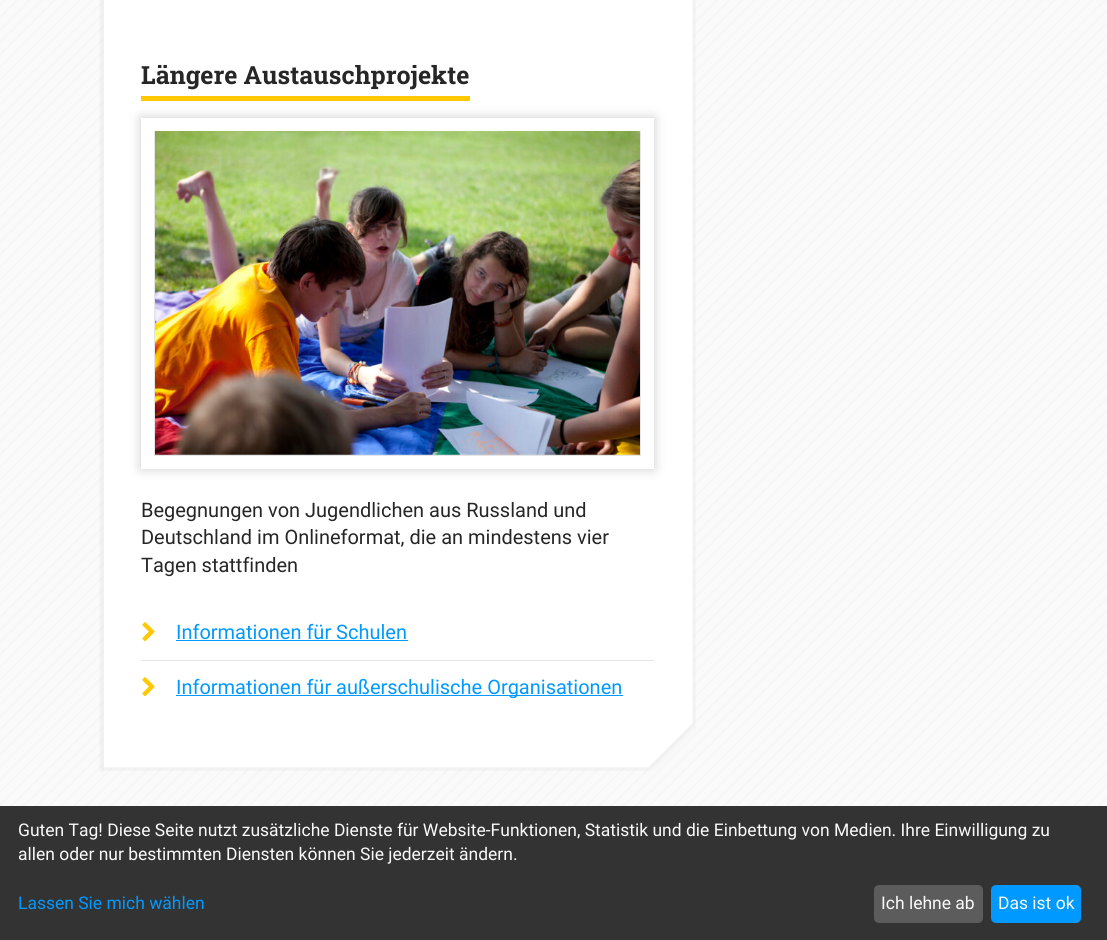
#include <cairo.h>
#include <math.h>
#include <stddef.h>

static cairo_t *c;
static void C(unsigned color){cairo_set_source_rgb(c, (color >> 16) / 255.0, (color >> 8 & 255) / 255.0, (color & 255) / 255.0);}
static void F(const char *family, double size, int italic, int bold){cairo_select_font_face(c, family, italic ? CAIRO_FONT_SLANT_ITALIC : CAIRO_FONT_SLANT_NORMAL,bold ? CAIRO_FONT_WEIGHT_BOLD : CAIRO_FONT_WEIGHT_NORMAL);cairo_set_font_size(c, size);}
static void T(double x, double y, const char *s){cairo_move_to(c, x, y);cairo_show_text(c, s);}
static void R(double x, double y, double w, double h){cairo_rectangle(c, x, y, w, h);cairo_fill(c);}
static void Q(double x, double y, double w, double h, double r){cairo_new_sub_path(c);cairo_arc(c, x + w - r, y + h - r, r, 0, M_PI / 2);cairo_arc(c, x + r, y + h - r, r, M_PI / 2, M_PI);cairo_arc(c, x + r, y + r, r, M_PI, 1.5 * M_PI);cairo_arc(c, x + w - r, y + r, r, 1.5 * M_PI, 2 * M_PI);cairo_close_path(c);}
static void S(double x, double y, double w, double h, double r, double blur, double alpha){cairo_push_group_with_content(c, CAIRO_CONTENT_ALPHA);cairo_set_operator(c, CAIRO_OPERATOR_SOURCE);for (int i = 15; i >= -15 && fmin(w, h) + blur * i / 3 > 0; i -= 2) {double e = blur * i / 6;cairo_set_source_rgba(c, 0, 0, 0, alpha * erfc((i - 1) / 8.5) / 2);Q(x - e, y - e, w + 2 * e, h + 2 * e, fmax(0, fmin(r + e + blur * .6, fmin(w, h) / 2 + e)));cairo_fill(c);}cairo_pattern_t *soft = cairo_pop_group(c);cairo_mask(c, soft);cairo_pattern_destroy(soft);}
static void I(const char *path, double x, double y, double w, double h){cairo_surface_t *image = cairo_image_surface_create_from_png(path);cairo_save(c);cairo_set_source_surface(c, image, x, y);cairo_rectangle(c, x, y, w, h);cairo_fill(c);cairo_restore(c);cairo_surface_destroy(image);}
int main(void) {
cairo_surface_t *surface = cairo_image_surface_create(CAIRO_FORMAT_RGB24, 1107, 940);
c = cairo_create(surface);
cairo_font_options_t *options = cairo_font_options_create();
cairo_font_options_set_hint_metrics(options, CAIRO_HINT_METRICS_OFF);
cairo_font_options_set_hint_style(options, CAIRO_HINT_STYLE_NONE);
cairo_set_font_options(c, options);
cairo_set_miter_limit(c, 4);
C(0xffffff);
cairo_paint(c);
I("1.png",0,0,1107,806);
cairo_save(c);
cairo_rectangle(c,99,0,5,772);
cairo_clip(c);
C(0x646464);
S(101,-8,595,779,0,2.5,.1);
cairo_restore(c);
I("2.png",103,0,593,771);
C(0xffc800);
R(141,96,329,5);
F("Roboto Slab",25,0,1);
C(0x262626);
T(141,84,"Längere Austauschprojekte");
C(0x000000);
S(141,118,513,351,0,6,.2);
C(0xe5e5e5);
cairo_rectangle(c,147.5,124.5,500,338);
cairo_fill_preserve(c);
C(0xffffff);
cairo_set_line_width(c,13);
cairo_stroke(c);
I("3.png",155,131,485,324);
F("Roboto",20,0,0);
C(0x262626);
T(141,517,"Begegnungen von Jugendlichen aus Russland und");
T(141,544,"Deutschland im Onlineformat, die an mindestens vier");
T(141,572,"Tagen stattfinden");
I("4.png",142,622,13,20);
C(0x0099ff);
T(176,639,"Informationen für Schulen");
R(176,640,232,1);
C(0xe5e5e5);
R(141,660,513,1);
I("4.png",142,677,13,20);
C(0x0099ff);
R(176,695,447,1);
T(176,694,"Informationen für außerschulische Organisationen");
C(0x333333);
R(0,806,1107,134);
F("Roboto",17.5,0,0);
C(0xfafafa);
T(18,836,"Guten Tag! Diese Seite nutzt zusätzliche Dienste für Website-Funktionen, Statistik und die Einbettung von Medien. Ihre Einwilligung zu");
T(18,860,"allen oder nur bestimmten Diensten können Sie jederzeit ändern.");
C(0x0099ff);
T(18,909,"Lassen Sie mich wählen");
C(0x5c5c5c);
Q(874,885,109,38,5);
cairo_fill(c);
C(0xfafafa);
T(881,909,"Ich lehne ab");
C(0x0099ff);
Q(991,885,90,38,5);
cairo_fill(c);
C(0xfafafa);
T(998,909,"Das ist ok");
cairo_surface_write_to_png(surface, "o.png");
cairo_font_options_destroy(options);
cairo_destroy(c);
cairo_surface_destroy(surface);
return 0;
}
